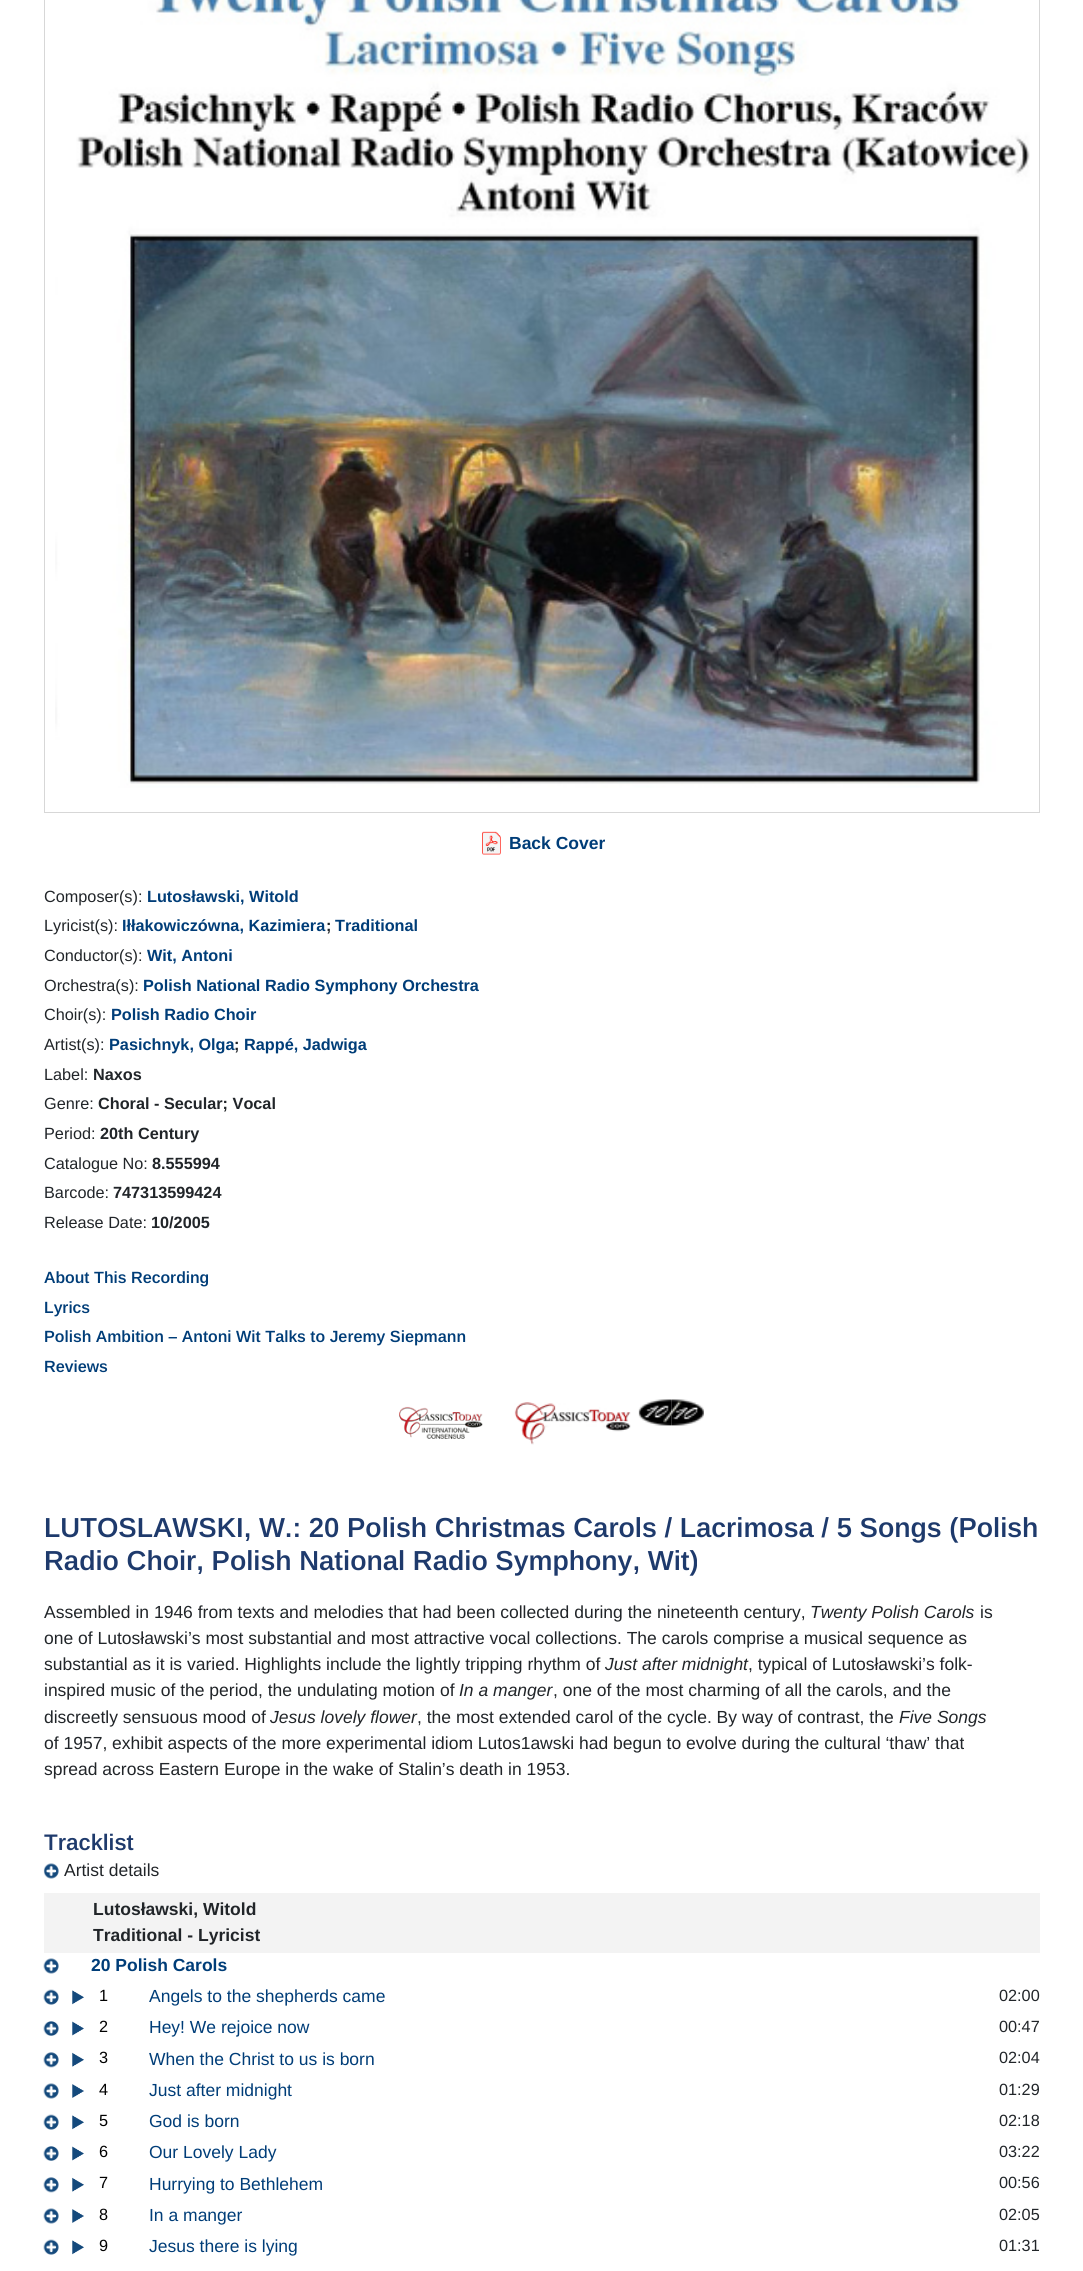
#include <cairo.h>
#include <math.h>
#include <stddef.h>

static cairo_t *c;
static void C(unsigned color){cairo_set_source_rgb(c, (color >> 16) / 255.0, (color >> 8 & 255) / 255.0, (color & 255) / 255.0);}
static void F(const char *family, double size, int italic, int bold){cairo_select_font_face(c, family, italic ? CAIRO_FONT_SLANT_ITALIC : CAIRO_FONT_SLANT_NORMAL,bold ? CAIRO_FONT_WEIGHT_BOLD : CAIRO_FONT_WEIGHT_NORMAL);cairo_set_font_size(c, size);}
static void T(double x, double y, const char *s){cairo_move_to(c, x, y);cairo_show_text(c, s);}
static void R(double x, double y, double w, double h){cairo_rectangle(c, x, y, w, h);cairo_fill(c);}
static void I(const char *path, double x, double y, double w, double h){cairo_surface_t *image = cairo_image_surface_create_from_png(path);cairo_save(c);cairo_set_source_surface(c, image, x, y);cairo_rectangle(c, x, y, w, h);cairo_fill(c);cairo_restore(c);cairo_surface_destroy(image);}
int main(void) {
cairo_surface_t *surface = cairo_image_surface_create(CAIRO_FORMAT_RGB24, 1083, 2271);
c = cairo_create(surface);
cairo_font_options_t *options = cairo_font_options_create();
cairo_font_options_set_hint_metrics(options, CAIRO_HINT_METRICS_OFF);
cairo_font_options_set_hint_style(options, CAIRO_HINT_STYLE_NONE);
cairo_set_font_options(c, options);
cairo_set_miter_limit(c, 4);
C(0xffffff);
cairo_paint(c);
cairo_rectangle(c,44.5,-.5,995,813);
C(0xd7d7d7);
cairo_set_line_width(c,1);
cairo_stroke(c);
I("1.png",55,0,975,788);
I("2.png",482,831,19,24);
F("Arimo",17.5,0,1);
C(0x003d78);
T(509,849,"Back Cover");
F("Arimo",16.25,0,0);
C(0x212529);
T(44,902,"Composer(s):");
F("Arimo",16.25,0,1);
C(0x003d78);
T(147,902,"Lutosławski, Witold");
F("Arimo",16.25,0,0);
C(0x212529);
T(44,931,"Lyricist(s):");
F("Arimo",16.25,0,1);
C(0x003d78);
T(122,931,"Iłłakowiczówna, Kazimiera");
C(0x212529);
T(326,931,";");
C(0x003d78);
T(335,931,"Traditional");
F("Arimo",16.25,0,0);
C(0x212529);
T(44,961,"Conductor(s):");
F("Arimo",16.25,0,1);
C(0x003d78);
T(147,961,"Wit, Antoni");
F("Arimo",16.25,0,0);
C(0x212529);
T(44,991,"Orchestra(s):");
F("Arimo",16.25,0,1);
C(0x003d78);
T(143,991,"Polish National Radio Symphony Orchestra");
F("Arimo",16.25,0,0);
C(0x212529);
T(44,1020,"Choir(s):");
F("Arimo",16.25,0,1);
C(0x003d78);
T(111,1020,"Polish Radio Choir");
F("Arimo",16.25,0,0);
C(0x212529);
T(44,1050,"Artist(s):");
F("Arimo",16.25,0,1);
C(0x003d78);
T(109,1050,"Pasichnyk, Olga");
C(0x212529);
T(234,1050,";");
C(0x003d78);
T(244,1050,"Rappé, Jadwiga");
F("Arimo",16.25,0,0);
C(0x212529);
T(44,1080,"Label:");
F("Arimo",16.25,0,1);
T(93,1080,"Naxos");
F("Arimo",16.25,0,0);
T(44,1109,"Genre:");
F("Arimo",16.25,0,1);
T(98,1109,"Choral - Secular; Vocal");
F("Arimo",16.25,0,0);
T(44,1139,"Period:");
F("Arimo",16.25,0,1);
T(100,1139,"20th Century");
F("Arimo",16.25,0,0);
T(44,1169,"Catalogue No:");
F("Arimo",16.25,0,1);
T(152,1169,"8.555994");
F("Arimo",16.25,0,0);
T(44,1198,"Barcode:");
F("Arimo",16.25,0,1);
T(113,1198,"747313599424");
F("Arimo",16.25,0,0);
T(44,1228,"Release Date:");
F("Arimo",16.25,0,1);
T(151,1228,"10/2005");
F("Arimo SemiBold",16.25,0,0);
C(0x003d78);
T(44,1283,"About This Recording");
T(44,1313,"Lyrics");
T(44,1342,"Polish Ambition – Antoni Wit Talks to Jeremy Siepmann");
T(44,1372,"Reviews");
I("3.png",399,1406,84,33);
I("4.png",514,1402,117,43);
I("5.png",638,1399,34,27);
I("6.png",671,1399,33,27);
F("Arimo SemiBold",27.5,0,0);
C(0x1e3a6c);
T(44,1537,"LUTOSLAWSKI, W.: 20 Polish Christmas Carols / Lacrimosa / 5 Songs (Polish");
T(44,1570,"Radio Choir, Polish National Radio Symphony, Wit)");
F("Arimo",17.5,0,0);
C(0x212529);
T(44,1618,"Assembled in 1946 from texts and melodies that had been collected during the nineteenth century,");
F("Arimo",17.5,1,0);
T(810,1618,"Twenty Polish Carols");
F("Arimo",17.5,0,0);
T(980,1618,"is");
T(44,1644,"one of Lutosławski’s most substantial and most attractive vocal collections. The carols comprise a musical sequence as");
T(44,1670,"substantial as it is varied. Highlights include the lightly tripping rhythm of");
F("Arimo",17.5,1,0);
T(605,1670,"Just after midnight");
F("Arimo",17.5,0,0);
T(748,1670,", typical of Lutosławski’s folk-");
T(44,1696,"inspired music of the period, the undulating motion of");
F("Arimo",17.5,1,0);
T(459,1696,"In a manger");
F("Arimo",17.5,0,0);
T(553,1696,", one of the most charming of all the carols, and the");
T(44,1723,"discreetly sensuous mood of");
F("Arimo",17.5,1,0);
T(270,1723,"Jesus lovely flower");
F("Arimo",17.5,0,0);
T(417,1723,", the most extended carol of the cycle. By way of contrast, the");
F("Arimo",17.5,1,0);
T(899,1723,"Five Songs");
F("Arimo",17.5,0,0);
T(44,1749,"of 1957, exhibit aspects of the more experimental idiom Lutos1awski had begun to evolve during the cultural ‘thaw’ that");
T(44,1775,"spread across Eastern Europe in the wake of Stalin’s death in 1953.");
F("Arimo SemiBold",22.5,0,0);
C(0x1e3a6c);
T(44,1850,"Tracklist");
I("7.png",43,1863,16,16);
F("Arimo",17.5,0,0);
C(0x212529);
T(64,1876,"Artist details");
C(0xf3f3f3);
R(44,1893,996,60);
F("Arimo",17.5,0,1);
C(0x212529);
T(93,1915,"Lutosławski, Witold");
T(93,1941,"Traditional - Lyricist");
I("8.png",43,1958,16,16);
C(0x003d78);
T(91,1971,"20 Polish Carols");
I("9.png",43,1989,16,16);
I("10.png",72,1990,12,15);
F("Arimo",16.25,0,0);
C(0x000000);
T(99,2001,"1");
F("Arimo",17.5,0,0);
C(0x003d78);
T(149,2002,"Angels to the shepherds came");
F("Arimo",16.25,0,0);
C(0x212529);
T(999,2001,"02:00");
I("11.png",43,2021,16,15);
I("12.png",72,2021,12,15);
C(0x000000);
T(99,2032,"2");
F("Arimo",17.5,0,0);
C(0x003d78);
T(149,2033,"Hey! We rejoice now");
F("Arimo",16.25,0,0);
C(0x212529);
T(999,2032,"00:47");
I("13.png",43,2052,16,16);
I("14.png",72,2052,12,15);
C(0x000000);
T(99,2063,"3");
F("Arimo",17.5,0,0);
C(0x003d78);
T(149,2065,"When the Christ to us is born");
F("Arimo",16.25,0,0);
C(0x212529);
T(999,2063,"02:04");
I("8.png",43,2083,16,16);
I("15.png",72,2084,12,14);
C(0x000000);
T(99,2095,"4");
F("Arimo",17.5,0,0);
C(0x003d78);
T(149,2096,"Just after midnight");
F("Arimo",16.25,0,0);
C(0x212529);
T(999,2095,"01:29");
I("9.png",43,2114,16,16);
I("10.png",72,2115,12,15);
C(0x000000);
T(99,2126,"5");
F("Arimo",17.5,0,0);
C(0x003d78);
T(149,2127,"God is born");
F("Arimo",16.25,0,0);
C(0x212529);
T(999,2126,"02:18");
I("11.png",43,2146,16,15);
I("12.png",72,2146,12,15);
C(0x000000);
T(99,2157,"6");
F("Arimo",17.5,0,0);
C(0x003d78);
T(149,2158,"Our Lovely Lady");
F("Arimo",16.25,0,0);
C(0x212529);
T(999,2157,"03:22");
I("13.png",43,2177,16,16);
I("14.png",72,2177,12,15);
C(0x000000);
T(99,2188,"7");
F("Arimo",17.5,0,0);
C(0x003d78);
T(149,2190,"Hurrying to Bethlehem");
F("Arimo",16.25,0,0);
C(0x212529);
T(999,2188,"00:56");
I("8.png",43,2208,16,16);
I("15.png",72,2209,12,14);
C(0x000000);
T(99,2220,"8");
F("Arimo",17.5,0,0);
C(0x003d78);
T(149,2221,"In a manger");
F("Arimo",16.25,0,0);
C(0x212529);
T(999,2220,"02:05");
I("9.png",43,2239,16,16);
I("10.png",72,2240,12,15);
C(0x000000);
T(99,2251,"9");
F("Arimo",17.5,0,0);
C(0x003d78);
T(149,2252,"Jesus there is lying");
F("Arimo",16.25,0,0);
C(0x212529);
T(999,2251,"01:31");
cairo_surface_write_to_png(surface, "o.png");
cairo_font_options_destroy(options);
cairo_destroy(c);
cairo_surface_destroy(surface);
return 0;
}
